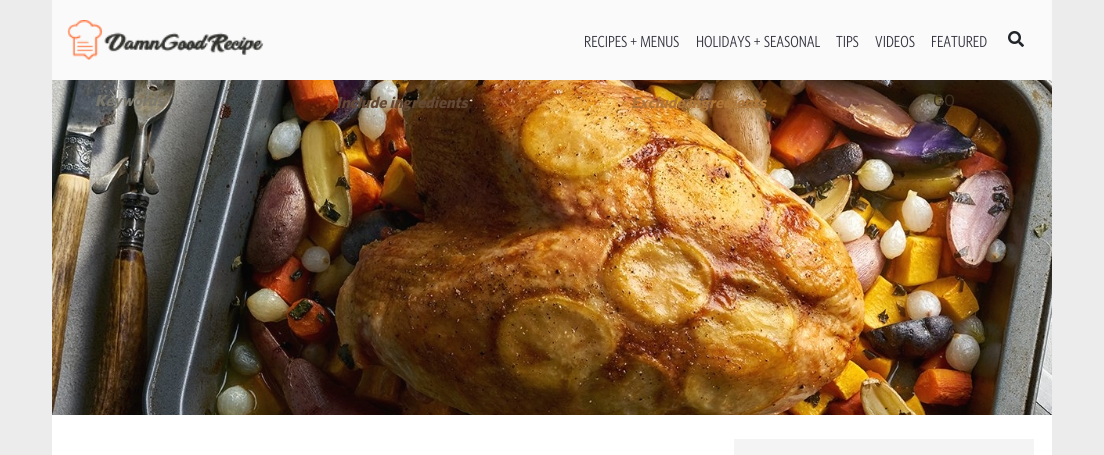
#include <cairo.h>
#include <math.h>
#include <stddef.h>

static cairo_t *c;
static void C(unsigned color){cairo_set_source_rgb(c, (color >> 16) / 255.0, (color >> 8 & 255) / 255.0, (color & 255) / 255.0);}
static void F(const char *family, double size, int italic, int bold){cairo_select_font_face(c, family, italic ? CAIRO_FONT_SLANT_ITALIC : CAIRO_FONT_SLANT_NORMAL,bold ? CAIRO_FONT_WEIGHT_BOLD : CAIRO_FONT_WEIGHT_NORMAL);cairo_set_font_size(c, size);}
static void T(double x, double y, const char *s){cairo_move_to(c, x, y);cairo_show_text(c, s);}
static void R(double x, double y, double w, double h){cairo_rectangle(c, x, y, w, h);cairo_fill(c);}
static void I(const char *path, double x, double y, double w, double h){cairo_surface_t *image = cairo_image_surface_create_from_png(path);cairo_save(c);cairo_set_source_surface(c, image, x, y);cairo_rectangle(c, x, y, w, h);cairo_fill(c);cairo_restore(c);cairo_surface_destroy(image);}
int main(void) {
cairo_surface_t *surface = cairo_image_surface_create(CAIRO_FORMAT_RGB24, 1104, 455);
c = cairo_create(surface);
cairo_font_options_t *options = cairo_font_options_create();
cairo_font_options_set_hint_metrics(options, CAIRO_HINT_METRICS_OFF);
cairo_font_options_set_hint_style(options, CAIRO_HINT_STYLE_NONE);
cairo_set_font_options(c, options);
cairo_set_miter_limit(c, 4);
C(0xececec);
cairo_paint(c);
C(0xfafafa);
R(52,0,1000,80);
I("1.png",67,20,197,40);
F("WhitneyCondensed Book",16,0,0);
C(0x363642);
T(584,47,"RECIPES + MENUS");
T(696,47,"HOLIDAYS + SEASONAL");
T(836,47,"TIPS");
T(875,47,"VIDEOS");
T(931,47,"FEATURED");
I("2.png",1008,31,16,16);
I("3.png",52,80,1000,335);
F("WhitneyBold",16,1,1);
C(0x7b786e);
T(95,106,"Keywords");
C(0x634936);
T(336,108,"Include ingredients");
C(0xae7537);
T(631,108,"Exclude ingredients");
F("Roboto",16,0,0);
C(0x3d311f);
T(933,106,"GO");
C(0xffffff);
R(52,415,1000,40);
C(0xf4f4f4);
R(734,439,300,16);
cairo_surface_write_to_png(surface, "o.png");
cairo_font_options_destroy(options);
cairo_destroy(c);
cairo_surface_destroy(surface);
return 0;
}
